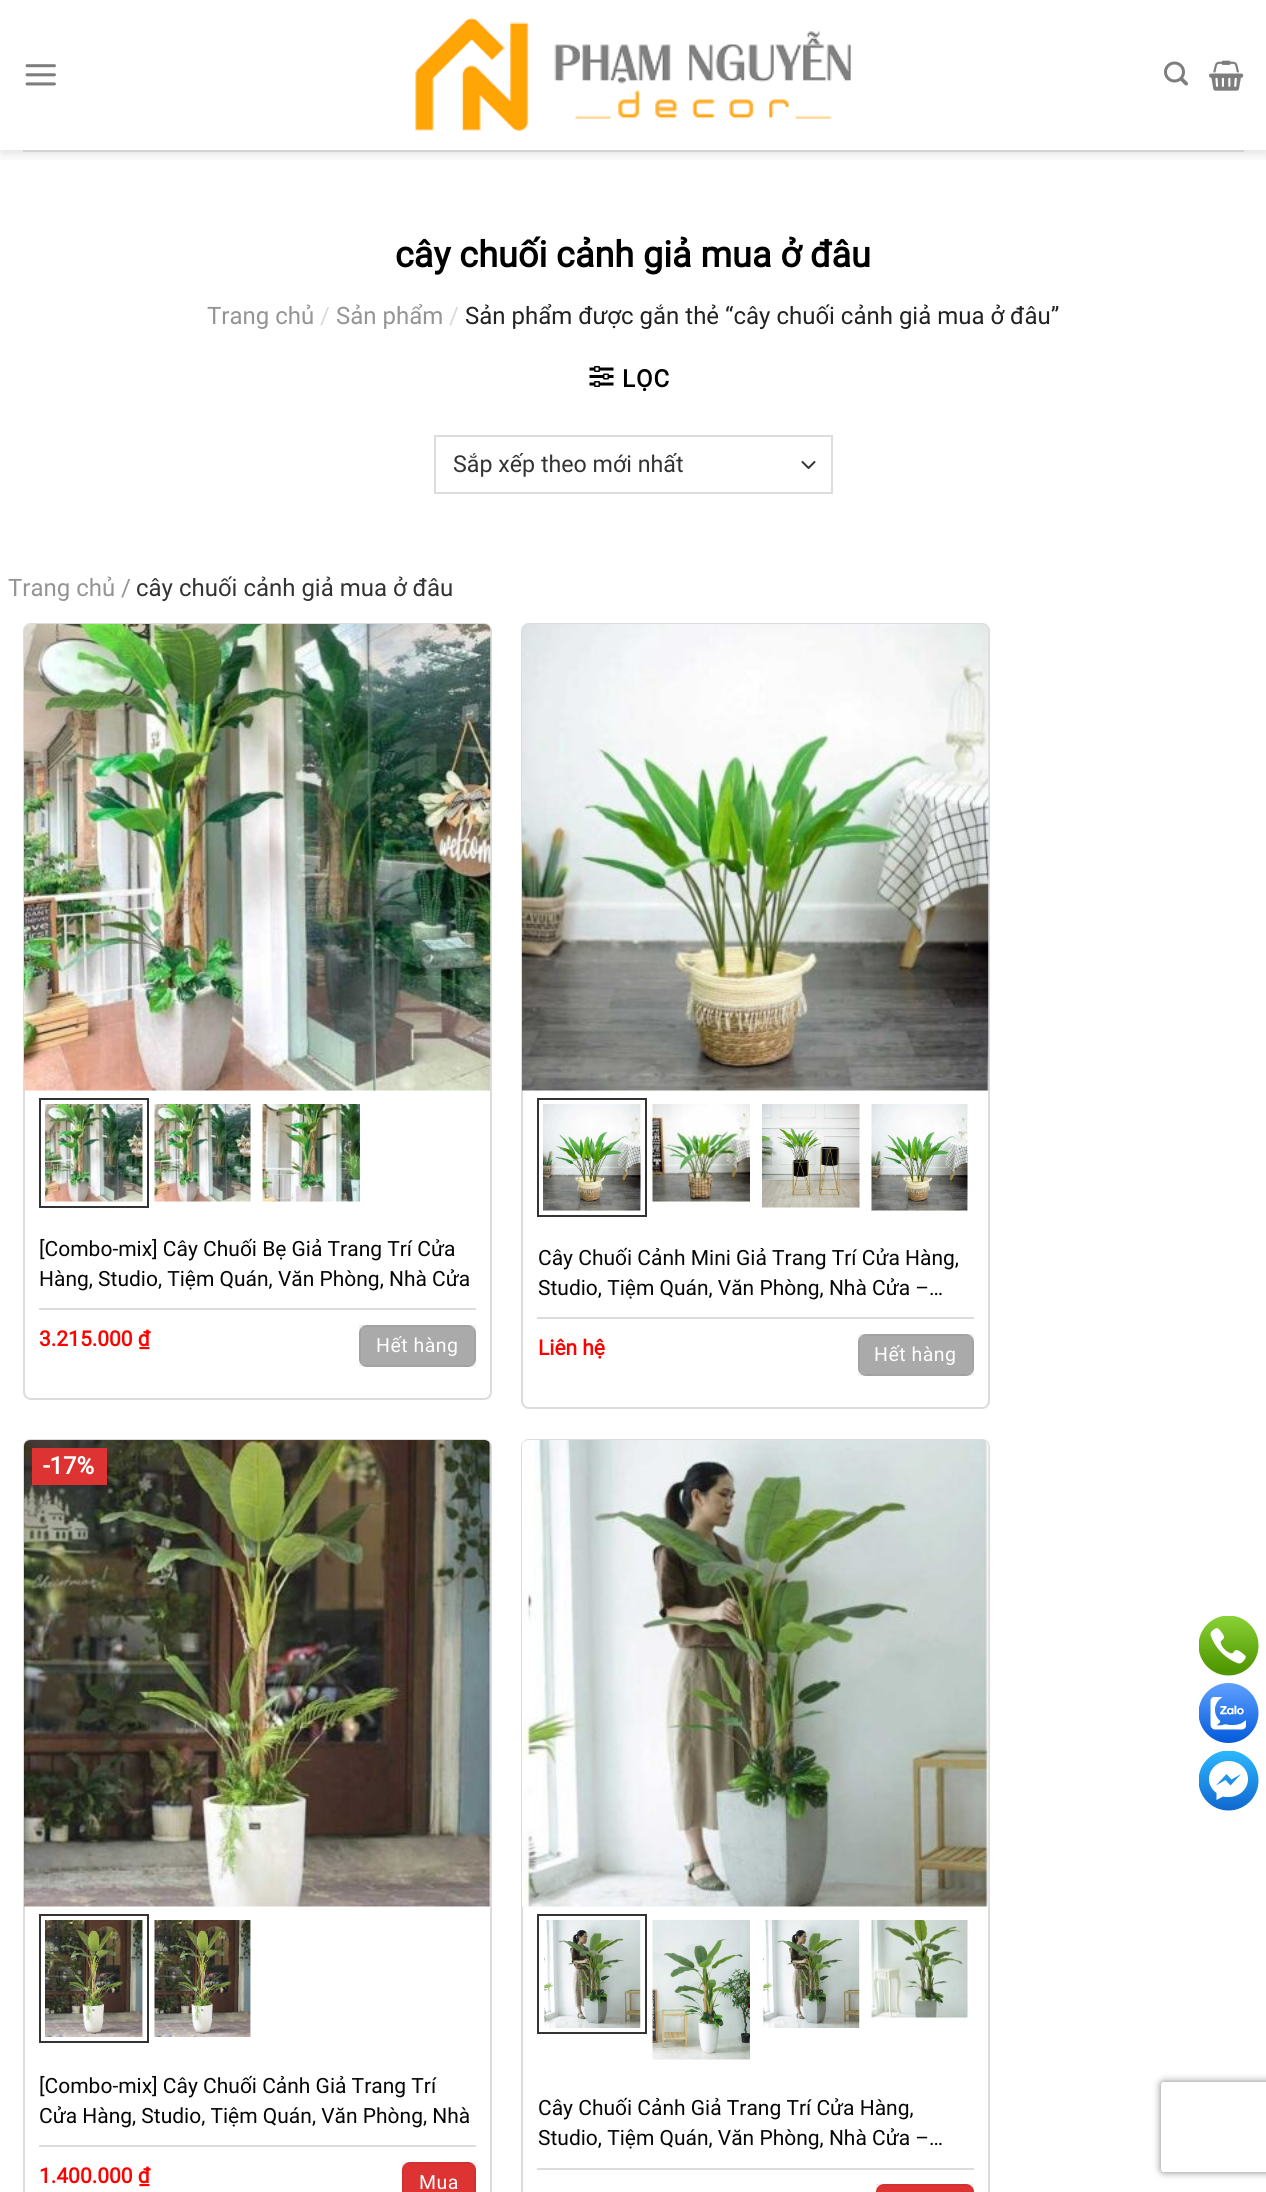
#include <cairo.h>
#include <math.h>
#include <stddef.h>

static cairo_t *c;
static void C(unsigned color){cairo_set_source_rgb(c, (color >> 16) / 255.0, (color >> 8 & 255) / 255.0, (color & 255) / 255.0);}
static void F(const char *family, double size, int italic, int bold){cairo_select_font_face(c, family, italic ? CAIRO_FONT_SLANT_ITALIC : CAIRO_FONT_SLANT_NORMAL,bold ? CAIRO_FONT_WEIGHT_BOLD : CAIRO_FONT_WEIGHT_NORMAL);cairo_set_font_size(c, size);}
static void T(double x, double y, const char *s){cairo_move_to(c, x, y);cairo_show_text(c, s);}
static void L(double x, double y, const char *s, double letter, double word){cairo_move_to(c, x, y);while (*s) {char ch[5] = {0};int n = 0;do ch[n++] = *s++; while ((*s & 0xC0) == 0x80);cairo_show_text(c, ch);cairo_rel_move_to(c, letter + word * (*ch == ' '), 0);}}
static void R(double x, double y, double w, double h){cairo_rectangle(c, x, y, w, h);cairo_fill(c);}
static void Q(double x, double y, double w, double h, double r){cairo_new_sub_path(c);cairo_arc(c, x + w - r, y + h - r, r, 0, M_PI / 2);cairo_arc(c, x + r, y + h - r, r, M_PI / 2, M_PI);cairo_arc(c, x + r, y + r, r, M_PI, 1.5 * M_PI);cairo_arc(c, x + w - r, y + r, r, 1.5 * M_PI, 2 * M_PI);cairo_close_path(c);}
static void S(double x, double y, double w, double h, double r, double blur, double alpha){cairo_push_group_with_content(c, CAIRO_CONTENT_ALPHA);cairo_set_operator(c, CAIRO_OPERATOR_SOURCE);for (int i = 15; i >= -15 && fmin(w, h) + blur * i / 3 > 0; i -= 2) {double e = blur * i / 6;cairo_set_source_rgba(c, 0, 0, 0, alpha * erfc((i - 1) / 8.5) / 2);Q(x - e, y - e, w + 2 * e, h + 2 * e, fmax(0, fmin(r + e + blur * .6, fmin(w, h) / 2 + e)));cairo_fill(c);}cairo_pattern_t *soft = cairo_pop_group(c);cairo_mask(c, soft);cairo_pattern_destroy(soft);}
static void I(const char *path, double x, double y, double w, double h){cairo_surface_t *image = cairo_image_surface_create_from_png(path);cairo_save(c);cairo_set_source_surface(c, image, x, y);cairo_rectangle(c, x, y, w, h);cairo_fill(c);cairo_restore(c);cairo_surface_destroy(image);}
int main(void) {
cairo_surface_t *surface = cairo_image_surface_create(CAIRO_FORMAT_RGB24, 1266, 2192);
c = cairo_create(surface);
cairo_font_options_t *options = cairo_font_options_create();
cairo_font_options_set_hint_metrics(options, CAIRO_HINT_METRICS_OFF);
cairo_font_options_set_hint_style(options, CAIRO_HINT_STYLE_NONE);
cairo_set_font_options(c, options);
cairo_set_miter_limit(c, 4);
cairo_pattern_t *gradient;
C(0xffffff);
cairo_paint(c);
cairo_save(c);
cairo_rectangle(c,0,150,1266,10);
cairo_clip(c);
C(0x000000);
S(2,2,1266,150,0,7.5,.15);
cairo_restore(c);
I("1.png",25,64,31,22);
I("2.png",415,17,436,114);
I("3.png",1164,61,24,25);
I("4.png",1209,60,35,31);
C(0xd2d2d2);
R(23,150,1221,2);
F("Roboto",36,0,1);
C(0x000000);
T(395,267,"cây chuối cảnh giả mua ở đâu");
F("Roboto",24,0,0);
C(0x949494);
T(207,324,"Trang chủ");
C(0xd9d9d9);
T(320,324,"/");
C(0x949494);
T(336,324,"Sản phẩm");
C(0xd9d9d9);
T(449,324,"/");
C(0x222222);
T(465,324,"Sản phẩm được gắn thẻ “cây chuối cảnh giả mua ở đâu”");
I("5.png",589,366,25,21);
F("Roboto",24,0,1);
C(0x000000);
L(622,387,"LỌC",1,0);
cairo_new_path(c);
cairo_move_to(c,802.5,462);
cairo_line_to(c,808.5,468);
cairo_line_to(c,814.5,462);
C(0x333333);
cairo_set_line_cap(c,CAIRO_LINE_CAP_ROUND);
cairo_set_line_join(c,CAIRO_LINE_JOIN_ROUND);
cairo_stroke(c);
cairo_rectangle(c,435,436,397,57);
C(0xdddddd);
cairo_set_line_cap(c,CAIRO_LINE_CAP_BUTT);
cairo_set_line_join(c,CAIRO_LINE_JOIN_MITER);
cairo_stroke(c);
F("Roboto",23.25,0,0);
C(0x333333);
T(453,472,"Sắp xếp theo mới nhất");
F("Roboto",24,0,0);
C(0x949494);
T(8,596,"Trang chủ /");
C(0x333333);
T(136,596,"cây chuối cảnh giả mua ở đâu");
Q(24,624,467,775,7);
C(0xdcdcdc);
cairo_stroke(c);
I("6.png",24,624,467,467);
cairo_rectangle(c,40,1099,108,108);
C(0x333333);
cairo_stroke(c);
I("7.png",45,1104,98,98);
I("8.png",154,1104,97,98);
I("9.png",262,1104,98,98);
F("Roboto",21,0,0);
C(0x070404);
T(39,1256,"[Combo-mix] Cây Chuối Bẹ Giả Trang Trí Cửa");
T(39,1286,"Hàng, Studio, Tiệm Quán, Văn Phòng, Nhà Cửa");
C(0xdcdcdc);
R(39,1308,437,2);
F("Roboto",21,0,1);
C(0xff0000);
T(39,1346,"3.215.000 ₫");
C(0xaaaaaa);
Q(359,1325,117,42,8);
cairo_fill(c);
cairo_rectangle(c,360,1326,115,40);
cairo_set_source_rgba(c,0,0,0,0.05);
cairo_stroke(c);
F("Roboto",19.5,0,0);
C(0xffffff);
L(376,1352,"Hết hàng",.5,0);
Q(522,624,467,784,7);
C(0xdcdcdc);
cairo_stroke(c);
I("10.png",522,624,467,467);
cairo_rectangle(c,538,1099,108,117);
C(0x333333);
cairo_stroke(c);
I("11.png",543,1104,98,107);
I("12.png",652,1104,98,98);
I("13.png",762,1104,98,104);
I("14.png",871,1104,97,107);
F("Roboto",21,0,0);
C(0x070404);
T(538,1265,"Cây Chuối Cảnh Mini Giả Trang Trí Cửa Hàng,");
T(538,1295,"Studio, Tiệm Quán, Văn Phòng, Nhà Cửa –…");
C(0xdcdcdc);
R(537,1317,437,2);
F("Roboto",21,0,1);
C(0xff0000);
T(538,1355,"Liên hệ");
C(0xaaaaaa);
Q(858,1334,116,42,8);
cairo_fill(c);
cairo_rectangle(c,859,1335,114,40);
cairo_set_source_rgba(c,0,0,0,0.05);
cairo_stroke(c);
F("Roboto",19.5,0,0);
C(0xffffff);
L(874,1361,"Hết hàng",.5,0);
Q(24,1440,467,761,7);
C(0xdcdcdc);
cairo_stroke(c);
I("15.png",24,1440,467,467);
cairo_rectangle(c,40,1915,108,127);
C(0x333333);
cairo_stroke(c);
I("16.png",45,1920,98,117);
I("17.png",154,1920,97,117);
C(0xdd3333);
R(32,1448,75,37);
F("Roboto",24,0,1);
C(0xffffff);
T(43,1474,"-17%");
F("Roboto",21,0,0);
C(0x070404);
T(39,2093,"[Combo-mix] Cây Chuối Cảnh Giả Trang Trí");
T(39,2123,"Cửa Hàng, Studio, Tiệm Quán, Văn Phòng, Nhà");
C(0xdcdcdc);
R(39,2145,437,2);
F("Roboto",21,0,1);
C(0xff0000);
T(39,2183,"1.400.000 ₫");
C(0xdd3333);
Q(402,2162,74,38,8);
cairo_fill(c);
cairo_rectangle(c,403,2163,72,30);
cairo_set_source_rgba(c,0,0,0,0.05);
cairo_stroke(c);
F("Roboto",19.5,0,0);
C(0xffffff);
L(419,2189,"Mua",.5,0);
Q(522,1440,467,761,7);
C(0xdcdcdc);
cairo_stroke(c);
I("18.png",522,1440,467,467);
cairo_rectangle(c,538,1915,108,118);
C(0x333333);
cairo_stroke(c);
I("19.png",543,1920,98,108);
I("20.png",652,1920,98,140);
I("19.png",762,1920,98,108);
I("21.png",871,1920,97,98);
F("Roboto",21,0,0);
C(0x070404);
T(538,2115,"Cây Chuối Cảnh Giả Trang Trí Cửa Hàng,");
T(538,2145,"Studio, Tiệm Quán, Văn Phòng, Nhà Cửa –…");
C(0xdcdcdc);
R(537,2168,437,2);
C(0xdd3333);
Q(876,2184,98,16,8);
cairo_fill(c);
cairo_rectangle(c,877,2185,96,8);
cairo_set_source_rgba(c,0,0,0,0.05);
cairo_stroke(c);
I("22.png",1199,1616,60,60);
I("23.png",1199,1683,60,60);
cairo_save(c);
cairo_rectangle(c,1199,1751,60,60);
cairo_clip(c);
gradient = cairo_pattern_create_linear(1228,1810,1228,1751);
cairo_pattern_add_color_stop_rgba(gradient,0,0.067,0.408,0.812,1);
cairo_pattern_add_color_stop_rgba(gradient,1,0.173,0.718,1,1);
cairo_set_source(c,gradient);
cairo_pattern_destroy(gradient);
cairo_arc(c,1228.5,1780.5,30,0,2 * M_PI);
cairo_fill(c);
cairo_restore(c);
C(0xffffff);
cairo_set_fill_rule(c,CAIRO_FILL_RULE_EVEN_ODD);
cairo_new_path(c);
cairo_move_to(c,1228.5,1761);
cairo_curve_to(c,1210.5,1761,1201.5,1782,1216.5,1793);
cairo_line_to(c,1216.5,1800);
cairo_line_to(c,1223,1796.5);
cairo_curve_to(c,1224.5,1797,1226.5,1797,1228.5,1797);
cairo_curve_to(c,1239.5,1797,1248,1789,1248,1779);
cairo_curve_to(c,1248,1769,1239.5,1761,1228.5,1761);
cairo_close_path(c);
cairo_move_to(c,1230.5,1785.5);
cairo_line_to(c,1225.5,1780);
cairo_line_to(c,1216,1785.5);
cairo_line_to(c,1226.5,1774);
cairo_line_to(c,1231.5,1779.5);
cairo_line_to(c,1241,1774);
cairo_close_path(c);
cairo_fill(c);
cairo_save(c);
cairo_new_path(c);
cairo_move_to(c,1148,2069);
cairo_line_to(c,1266,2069);
cairo_line_to(c,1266,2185);
cairo_line_to(c,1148,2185);
cairo_close_path(c);
cairo_move_to(c,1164,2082);
cairo_line_to(c,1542,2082);
cairo_curve_to(c,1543.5,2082,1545,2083.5,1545,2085);
cairo_line_to(c,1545,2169);
cairo_curve_to(c,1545,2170.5,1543.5,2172,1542,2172);
cairo_line_to(c,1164,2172);
cairo_curve_to(c,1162.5,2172,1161,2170.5,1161,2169);
cairo_line_to(c,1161,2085);
cairo_curve_to(c,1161,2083.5,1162.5,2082,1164,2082);
cairo_close_path(c);
cairo_clip(c);
C(0x808080);
S(1161,2082,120,90,3,4,1);
cairo_restore(c);
cairo_surface_write_to_png(surface, "o.png");
cairo_font_options_destroy(options);
cairo_destroy(c);
cairo_surface_destroy(surface);
return 0;
}
